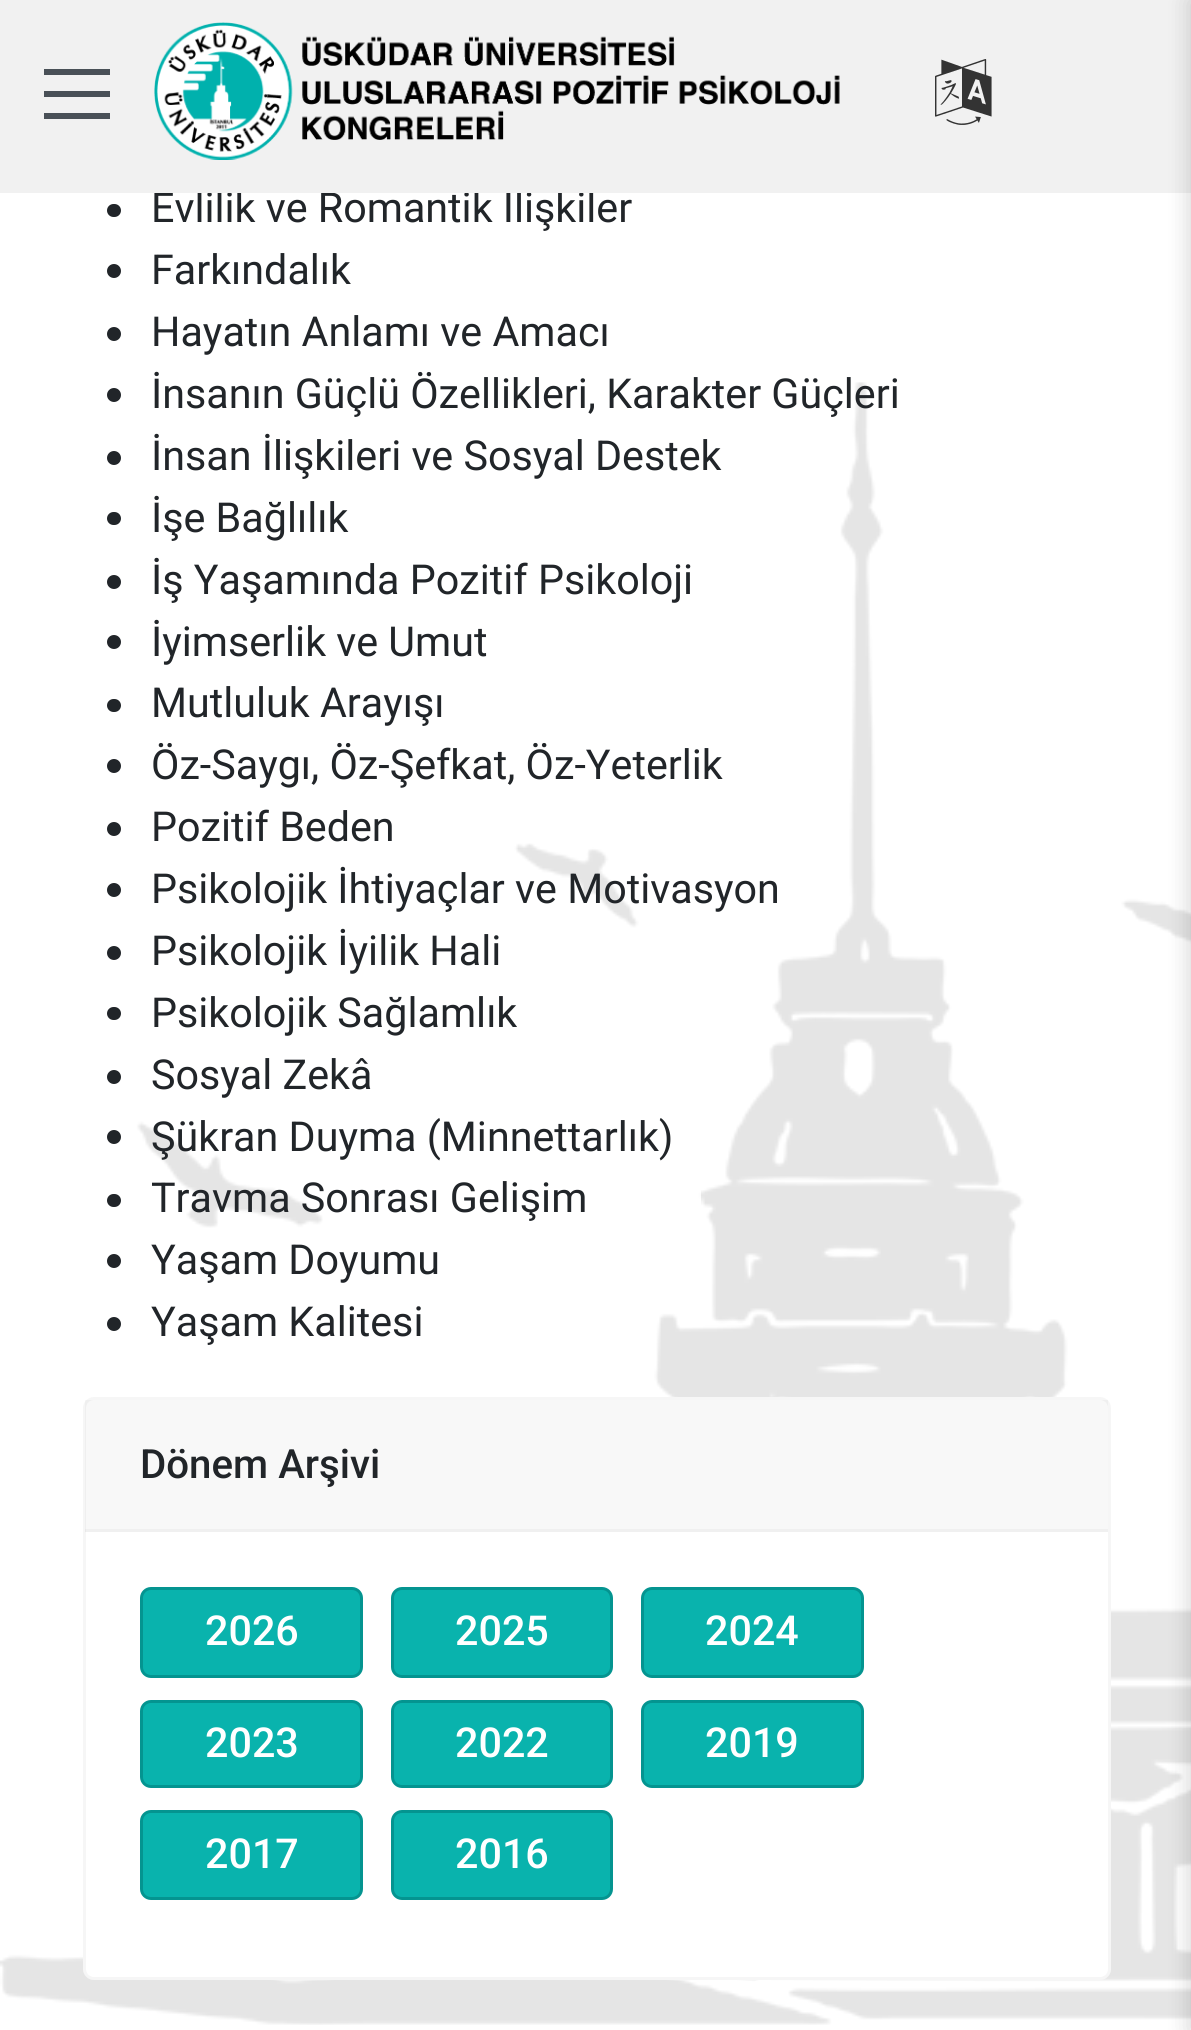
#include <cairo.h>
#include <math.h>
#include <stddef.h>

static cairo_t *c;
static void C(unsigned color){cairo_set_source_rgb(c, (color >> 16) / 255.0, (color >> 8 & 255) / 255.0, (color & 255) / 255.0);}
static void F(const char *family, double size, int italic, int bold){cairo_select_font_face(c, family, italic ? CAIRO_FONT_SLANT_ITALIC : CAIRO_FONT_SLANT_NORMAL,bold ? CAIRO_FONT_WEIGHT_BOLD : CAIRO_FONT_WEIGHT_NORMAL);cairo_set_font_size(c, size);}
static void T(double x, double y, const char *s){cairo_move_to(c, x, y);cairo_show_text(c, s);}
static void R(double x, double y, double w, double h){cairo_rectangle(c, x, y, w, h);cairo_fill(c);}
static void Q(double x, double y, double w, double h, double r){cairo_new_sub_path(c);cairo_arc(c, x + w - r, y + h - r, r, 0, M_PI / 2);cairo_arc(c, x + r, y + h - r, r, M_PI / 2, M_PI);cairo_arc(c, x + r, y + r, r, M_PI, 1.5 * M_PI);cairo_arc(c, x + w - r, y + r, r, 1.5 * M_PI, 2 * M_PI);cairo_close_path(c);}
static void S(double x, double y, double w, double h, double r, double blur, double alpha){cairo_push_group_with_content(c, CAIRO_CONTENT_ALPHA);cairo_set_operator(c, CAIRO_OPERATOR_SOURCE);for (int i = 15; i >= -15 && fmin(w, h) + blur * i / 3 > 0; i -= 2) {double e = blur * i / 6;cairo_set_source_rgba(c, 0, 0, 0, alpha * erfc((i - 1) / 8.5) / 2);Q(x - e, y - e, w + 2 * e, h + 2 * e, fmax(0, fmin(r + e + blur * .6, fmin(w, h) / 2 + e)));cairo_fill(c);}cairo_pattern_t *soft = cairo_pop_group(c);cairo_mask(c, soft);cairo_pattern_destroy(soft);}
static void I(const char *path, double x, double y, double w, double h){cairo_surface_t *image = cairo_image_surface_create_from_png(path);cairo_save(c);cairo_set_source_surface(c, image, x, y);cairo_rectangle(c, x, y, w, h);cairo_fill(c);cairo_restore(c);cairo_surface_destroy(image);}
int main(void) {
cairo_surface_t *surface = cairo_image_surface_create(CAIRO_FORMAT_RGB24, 1191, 2030);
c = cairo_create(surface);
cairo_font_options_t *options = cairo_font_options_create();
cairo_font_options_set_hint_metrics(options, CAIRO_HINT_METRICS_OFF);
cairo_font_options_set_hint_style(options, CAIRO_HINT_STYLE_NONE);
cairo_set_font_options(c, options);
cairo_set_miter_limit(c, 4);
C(0xffffff);
cairo_paint(c);
I("1.png",0,382,1191,1643);
F("Roboto",41.25,0,0);
C(0x212529);
T(151,222,"Evlilik ve Romantik İlişkiler");
C(0xf1f1f1);
R(0,0,1191,193);
C(0x495057);
R(44,91,66,6);
R(44,69,66,6);
R(44,113,66,6);
I("2.png",154,22,686,138);
I("3.png",935,59,57,66);
C(0x000000);
S(1188,0,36,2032,0,11,.15);
C(0x212529);
Q(107,204,14,13,6.5);
cairo_fill(c);
cairo_arc(c,114,271,7,0,2 * M_PI);
cairo_fill(c);
T(151,284,"Farkındalık");
cairo_new_path(c);
cairo_arc(c,114,334,7,0,2 * M_PI);
cairo_fill(c);
T(151,346,"Hayatın Anlamı ve Amacı");
cairo_new_path(c);
cairo_arc(c,114,395,7,0,2 * M_PI);
cairo_fill(c);
T(151,408,"İnsanın Güçlü Özellikleri, Karakter Güçleri");
cairo_new_path(c);
cairo_arc(c,114,458,7,0,2 * M_PI);
cairo_fill(c);
T(151,470,"İnsan İlişkileri ve Sosyal Destek");
Q(107,512,14,13,6.5);
cairo_fill(c);
T(151,532,"İşe Bağlılık");
cairo_new_path(c);
cairo_arc(c,114,582,7,0,2 * M_PI);
cairo_fill(c);
T(151,594,"İş Yaşamında Pozitif Psikoloji");
cairo_new_path(c);
cairo_arc(c,114,642,7,0,2 * M_PI);
cairo_fill(c);
T(151,656,"İyimserlik ve Umut");
Q(107,699,14,13,6.5);
cairo_fill(c);
T(151,717,"Mutluluk Arayışı");
cairo_new_path(c);
cairo_arc(c,114,766,7,0,2 * M_PI);
cairo_fill(c);
T(151,779,"Öz-Saygı, Öz-Şefkat, Öz-Yeterlik");
cairo_new_path(c);
cairo_arc(c,114,829,7,0,2 * M_PI);
cairo_fill(c);
T(151,841,"Pozitif Beden");
cairo_new_path(c);
cairo_arc(c,114,890,7,0,2 * M_PI);
cairo_fill(c);
T(151,903,"Psikolojik İhtiyaçlar ve Motivasyon");
cairo_new_path(c);
cairo_arc(c,114,953,7,0,2 * M_PI);
cairo_fill(c);
T(151,965,"Psikolojik İyilik Hali");
Q(107,1007,14,13,6.5);
cairo_fill(c);
T(151,1027,"Psikolojik Sağlamlık");
cairo_new_path(c);
cairo_arc(c,114,1077,7,0,2 * M_PI);
cairo_fill(c);
T(151,1089,"Sosyal Zekâ");
cairo_new_path(c);
cairo_arc(c,114,1137,7,0,2 * M_PI);
cairo_fill(c);
T(151,1151,"Şükran Duyma (Minnettarlık)");
Q(107,1194,14,13,6.5);
cairo_fill(c);
T(151,1212,"Travma Sonrası Gelişim");
cairo_new_path(c);
cairo_arc(c,114,1261,7,0,2 * M_PI);
cairo_fill(c);
T(151,1274,"Yaşam Doyumu");
cairo_new_path(c);
cairo_arc(c,114,1324,7,0,2 * M_PI);
cairo_fill(c);
T(151,1336,"Yaşam Kalitesi");
C(0xffffff);
Q(83,1397,1028,583,11);
cairo_fill(c);
Q(84.5,1398.5,1025,580,9.5);
cairo_set_source_rgba(c,0.702,0.702,0.702,0.12);
cairo_set_line_width(c,3);
cairo_stroke(c);
cairo_set_source_rgba(c,0,0,0,0.03);
R(85,1400,1023,132);
cairo_set_source_rgba(c,0.702,0.702,0.702,0.12);
R(85,1529,1023,3);
F("Roboto Medium",40.25,0,0);
C(0x212529);
T(140,1478,"Dönem Arşivi");
C(0x09b3ad);
Q(141.5,1588.5,220,88,9.5);
cairo_fill_preserve(c);
C(0x049490);
cairo_stroke(c);
F("Roboto Medium",41.25,0,0);
C(0xffffff);
T(205,1645,"2026");
C(0x09b3ad);
Q(392.5,1588.5,219,88,9.5);
cairo_fill_preserve(c);
C(0x049490);
cairo_stroke(c);
C(0xffffff);
T(455,1645,"2025");
C(0x09b3ad);
Q(642.5,1588.5,220,88,9.5);
cairo_fill_preserve(c);
C(0x049490);
cairo_stroke(c);
C(0xffffff);
T(705,1645,"2024");
C(0x09b3ad);
Q(141.5,1701.5,220,85,9.5);
cairo_fill_preserve(c);
C(0x049490);
cairo_stroke(c);
C(0xffffff);
T(205,1757,"2023");
C(0x09b3ad);
Q(392.5,1701.5,219,85,9.5);
cairo_fill_preserve(c);
C(0x049490);
cairo_stroke(c);
C(0xffffff);
T(455,1757,"2022");
C(0x09b3ad);
Q(642.5,1701.5,220,85,9.5);
cairo_fill_preserve(c);
C(0x049490);
cairo_stroke(c);
C(0xffffff);
T(705,1757,"2019");
C(0x09b3ad);
Q(141.5,1811.5,220,87,9.5);
cairo_fill_preserve(c);
C(0x049490);
cairo_stroke(c);
C(0xffffff);
T(205,1868,"2017");
C(0x09b3ad);
Q(392.5,1811.5,219,87,9.5);
cairo_fill_preserve(c);
C(0x049490);
cairo_stroke(c);
C(0xffffff);
T(455,1868,"2016");
cairo_surface_write_to_png(surface, "o.png");
cairo_font_options_destroy(options);
cairo_destroy(c);
cairo_surface_destroy(surface);
return 0;
}
